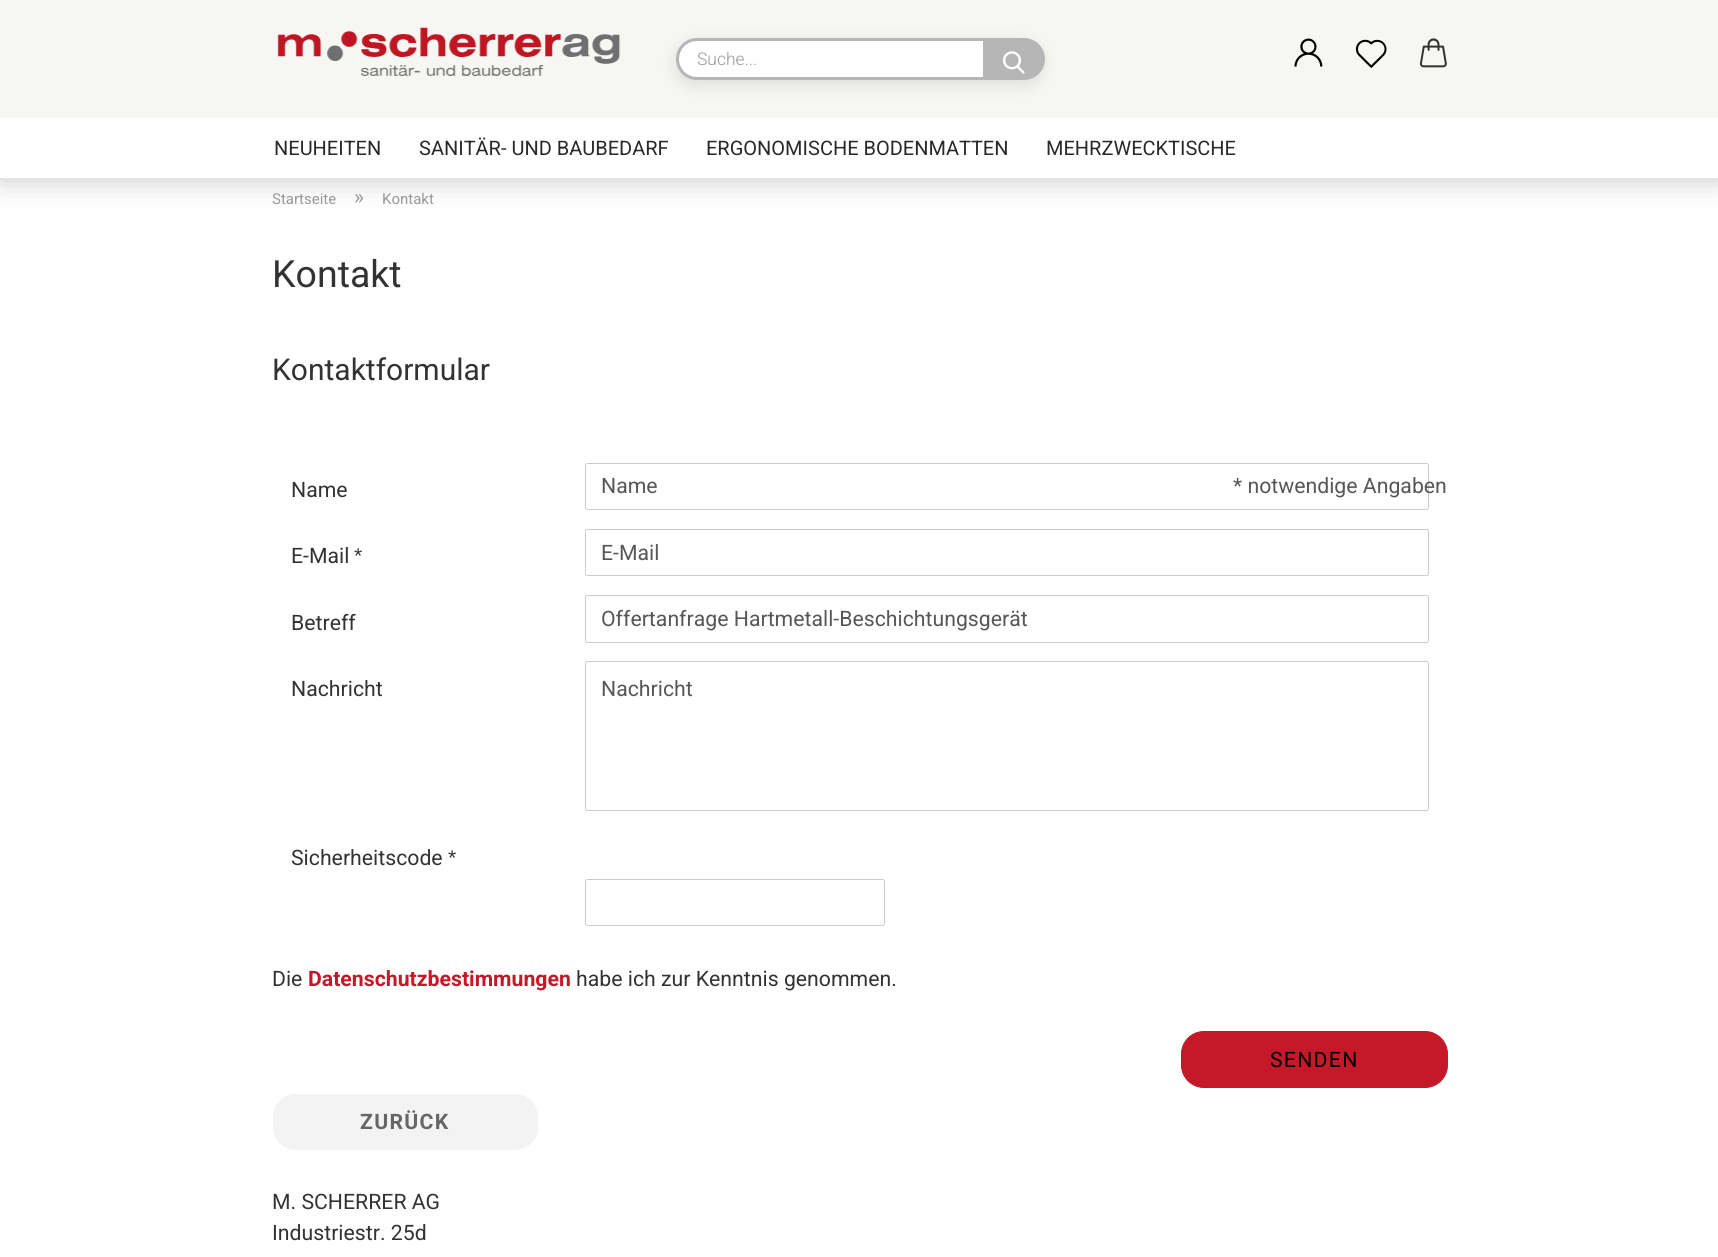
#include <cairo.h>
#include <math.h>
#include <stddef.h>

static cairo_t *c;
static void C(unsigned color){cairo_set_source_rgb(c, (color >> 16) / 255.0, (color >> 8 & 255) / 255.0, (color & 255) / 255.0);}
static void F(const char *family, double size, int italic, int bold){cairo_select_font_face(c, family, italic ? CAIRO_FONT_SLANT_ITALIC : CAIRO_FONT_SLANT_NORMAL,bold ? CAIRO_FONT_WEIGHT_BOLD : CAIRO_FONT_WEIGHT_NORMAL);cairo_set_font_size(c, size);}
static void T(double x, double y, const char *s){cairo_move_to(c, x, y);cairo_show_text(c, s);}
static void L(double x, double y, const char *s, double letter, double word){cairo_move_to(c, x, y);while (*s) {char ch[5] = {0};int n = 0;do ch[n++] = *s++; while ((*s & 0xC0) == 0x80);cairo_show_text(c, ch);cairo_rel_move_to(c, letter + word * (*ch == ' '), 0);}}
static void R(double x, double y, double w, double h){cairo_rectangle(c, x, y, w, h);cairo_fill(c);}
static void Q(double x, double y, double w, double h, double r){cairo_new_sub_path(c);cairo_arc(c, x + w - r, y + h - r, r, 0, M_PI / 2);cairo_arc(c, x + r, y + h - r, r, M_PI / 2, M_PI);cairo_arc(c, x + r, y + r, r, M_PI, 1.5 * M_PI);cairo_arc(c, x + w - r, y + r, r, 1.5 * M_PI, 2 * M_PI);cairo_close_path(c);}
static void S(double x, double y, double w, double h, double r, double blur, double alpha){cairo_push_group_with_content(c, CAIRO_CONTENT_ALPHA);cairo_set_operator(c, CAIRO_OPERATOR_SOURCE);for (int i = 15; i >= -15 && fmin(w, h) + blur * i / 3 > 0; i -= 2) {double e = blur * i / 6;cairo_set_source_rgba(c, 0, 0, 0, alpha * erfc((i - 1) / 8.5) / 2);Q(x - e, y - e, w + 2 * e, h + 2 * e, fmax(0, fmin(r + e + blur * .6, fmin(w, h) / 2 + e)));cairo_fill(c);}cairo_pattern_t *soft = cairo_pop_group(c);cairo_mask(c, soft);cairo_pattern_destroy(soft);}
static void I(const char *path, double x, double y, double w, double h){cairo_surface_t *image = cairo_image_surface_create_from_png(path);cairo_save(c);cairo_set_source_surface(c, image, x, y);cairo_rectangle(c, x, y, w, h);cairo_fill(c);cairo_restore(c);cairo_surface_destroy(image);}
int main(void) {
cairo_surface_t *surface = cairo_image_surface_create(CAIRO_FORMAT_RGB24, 1718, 1257);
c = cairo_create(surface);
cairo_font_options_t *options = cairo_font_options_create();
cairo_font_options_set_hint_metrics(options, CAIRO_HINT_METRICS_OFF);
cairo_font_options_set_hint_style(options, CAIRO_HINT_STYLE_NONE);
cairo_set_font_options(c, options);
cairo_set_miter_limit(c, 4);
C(0xffffff);
cairo_paint(c);
C(0x000000);
S(0,0,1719,175,0,15.5,.3);
C(0xf6f6f3);
R(0,0,1718,118);
I("1.png",277,27,344,49);
C(0x000000);
S(676,43,367,42,21,7.5,.1);
C(0xffffff);
Q(677.5,39.5,364,39,19.5);
cairo_fill_preserve(c);
C(0xb6b6b6);
cairo_set_line_width(c,3);
cairo_stroke(c);
F("Roboto Light",17.5,0,0);
C(0x999999);
T(697,65,"Suche...");
C(0xb6b6b6);
cairo_new_path(c);
cairo_move_to(c,983,38);
cairo_line_to(c,1024,38);
cairo_curve_to(c,1035.5,38,1045,47.5,1045,59);
cairo_curve_to(c,1045,70.5,1035.5,80,1024,80);
cairo_line_to(c,983,80);
cairo_close_path(c);
cairo_fill(c);
I("2.png",1003,51,22,23);
I("3.png",1294,38,29,29);
I("4.png",1355,39,32,29);
I("5.png",1419,38,28,30);
C(0xffffff);
R(0,118,1718,60);
F("Roboto",20,0,0);
C(0x292929);
T(274,155,"NEUHEITEN");
T(419,155,"SANITÄR- UND BAUBEDARF");
T(706,155,"ERGONOMISCHE BODENMATTEN");
T(1046,155,"MEHRZWECKTISCHE");
F("Roboto",15,0,0);
C(0x999999);
T(272,204,"Startseite");
F("Roboto",21.25,0,0);
T(354,204,"»");
F("Roboto",15,0,0);
T(382,204,"Kontakt");
F("Roboto",37.5,0,0);
C(0x333333);
T(272,287,"Kontakt");
F("Roboto",30,0,0);
T(272,380,"Kontaktformular");
F("Roboto",21.25,0,0);
T(291,497,"Name");
Q(585.5,463.5,843,46,2);
C(0xcccccc);
cairo_set_line_width(c,1);
cairo_stroke(c);
C(0x575757);
T(601,493,"Name");
C(0x333333);
T(291,563,"E-Mail");
F("Liberation Sans",21.25,0,0);
T(354,563,"*");
Q(585.5,529.5,843,46,2);
C(0xcccccc);
cairo_stroke(c);
F("Roboto",21.25,0,0);
C(0x575757);
T(601,560,"E-Mail");
C(0x333333);
T(291,630,"Betreff");
Q(585.5,595.5,843,47,2);
C(0xcccccc);
cairo_stroke(c);
C(0x575757);
T(601,626,"Offertanfrage Hartmetall-Beschichtungsgerät");
C(0x333333);
T(291,696,"Nachricht");
Q(585.5,661.5,843,149,2);
C(0xcccccc);
cairo_stroke(c);
C(0x575757);
T(601,696,"Nachricht");
C(0x333333);
T(291,865,"Sicherheitscode");
F("Liberation Sans",21.25,0,0);
T(448,865,"*");
Q(585.5,879.5,299,46,2);
C(0xcccccc);
cairo_stroke(c);
F("Roboto",21.25,0,0);
C(0x333333);
T(272,986,"Die");
F("Roboto",21.25,0,1);
C(0xc51929);
T(308,986,"Datenschutzbestimmungen");
F("Roboto",21.25,0,0);
C(0x333333);
T(576,986,"habe ich zur Kenntnis genommen.");
C(0xc51929);
Q(1181.5,1031.5,266,56,22.5);
cairo_fill_preserve(c);
cairo_stroke(c);
C(0x000000);
L(1270,1067,"SENDEN",1.25,0);
C(0xf3f3f3);
Q(273.5,1094.5,264,55,22.5);
cairo_fill_preserve(c);
cairo_stroke(c);
F("Roboto",21.25,0,1);
C(0x666666);
L(360,1129,"ZURÜCK",1.25,0);
F("Roboto",21.25,0,0);
C(0x575757);
T(1233,493,"* notwendige Angaben");
C(0x333333);
T(272,1209,"M. SCHERRER AG");
T(272,1240,"Industriestr. 25d");
cairo_surface_write_to_png(surface, "o.png");
cairo_font_options_destroy(options);
cairo_destroy(c);
cairo_surface_destroy(surface);
return 0;
}
